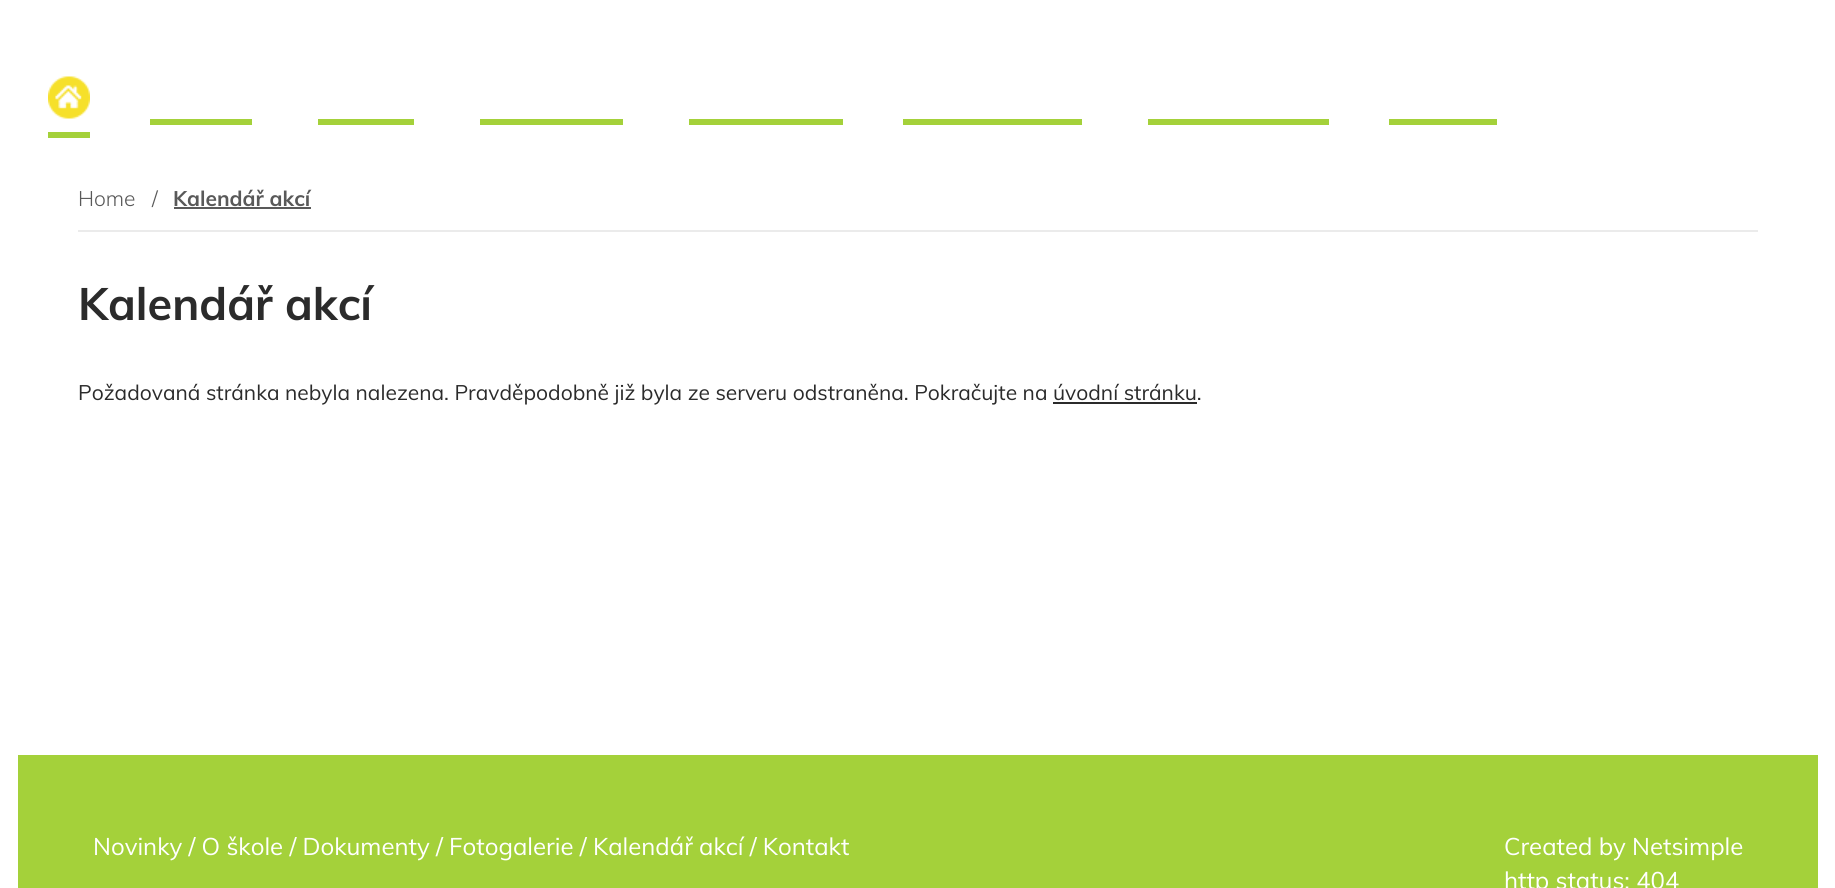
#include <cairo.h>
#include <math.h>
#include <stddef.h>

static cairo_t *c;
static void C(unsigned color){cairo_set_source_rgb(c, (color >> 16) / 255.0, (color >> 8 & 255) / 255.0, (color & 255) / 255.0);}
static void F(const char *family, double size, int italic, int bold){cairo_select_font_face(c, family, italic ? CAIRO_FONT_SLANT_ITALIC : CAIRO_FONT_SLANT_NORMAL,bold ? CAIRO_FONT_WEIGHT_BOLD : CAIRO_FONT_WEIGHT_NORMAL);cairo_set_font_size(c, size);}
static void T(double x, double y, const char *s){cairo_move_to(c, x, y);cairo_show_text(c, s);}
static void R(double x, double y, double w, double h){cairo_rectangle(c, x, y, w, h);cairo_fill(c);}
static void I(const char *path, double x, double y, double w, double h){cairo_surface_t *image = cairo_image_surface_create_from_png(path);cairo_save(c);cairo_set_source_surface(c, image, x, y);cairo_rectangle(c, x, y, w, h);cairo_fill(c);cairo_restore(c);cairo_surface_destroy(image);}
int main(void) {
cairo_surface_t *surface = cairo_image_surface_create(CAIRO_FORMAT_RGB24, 1835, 888);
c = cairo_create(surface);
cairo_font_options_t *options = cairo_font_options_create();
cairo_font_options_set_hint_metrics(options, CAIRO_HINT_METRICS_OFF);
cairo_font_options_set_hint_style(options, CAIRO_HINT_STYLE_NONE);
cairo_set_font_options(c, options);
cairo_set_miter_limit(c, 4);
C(0xffffff);
cairo_paint(c);
I("1.png",48,76,42,43);
C(0xa4d13a);
R(48,132,42,6);
R(150,119,102,6);
R(318,119,96,6);
R(480,119,143,6);
R(689,119,154,6);
R(903,119,179,6);
R(1148,119,181,6);
R(1389,119,108,6);
C(0xebebeb);
R(78,230,1680,2);
F("Muli Light",21,0,0);
C(0x595959);
T(78,206,"Home");
T(152,206,"/");
F("Muli",21,0,1);
T(173,206,"Kalendář akcí");
R(174,207,137,2);
F("Muli",45,0,1);
C(0x2b2b2b);
T(78,320,"Kalendář akcí");
F("Muli",21,0,0);
T(78,400,"Požadovaná stránka nebyla nalezena. Pravděpodobně již byla ze serveru odstraněna. Pokračujte na úvodní stránku.");
R(1053,402,144,2);
C(0xa4d13a);
R(18,755,1800,133);
F("Muli",24,0,0);
C(0xffffff);
T(93,855,"Novinky / O škole / Dokumenty / Fotogalerie / Kalendář akcí / Kontakt");
T(1504,855,"Created by Netsimple");
T(1504,889,"http status: 404");
cairo_surface_write_to_png(surface, "o.png");
cairo_font_options_destroy(options);
cairo_destroy(c);
cairo_surface_destroy(surface);
return 0;
}
